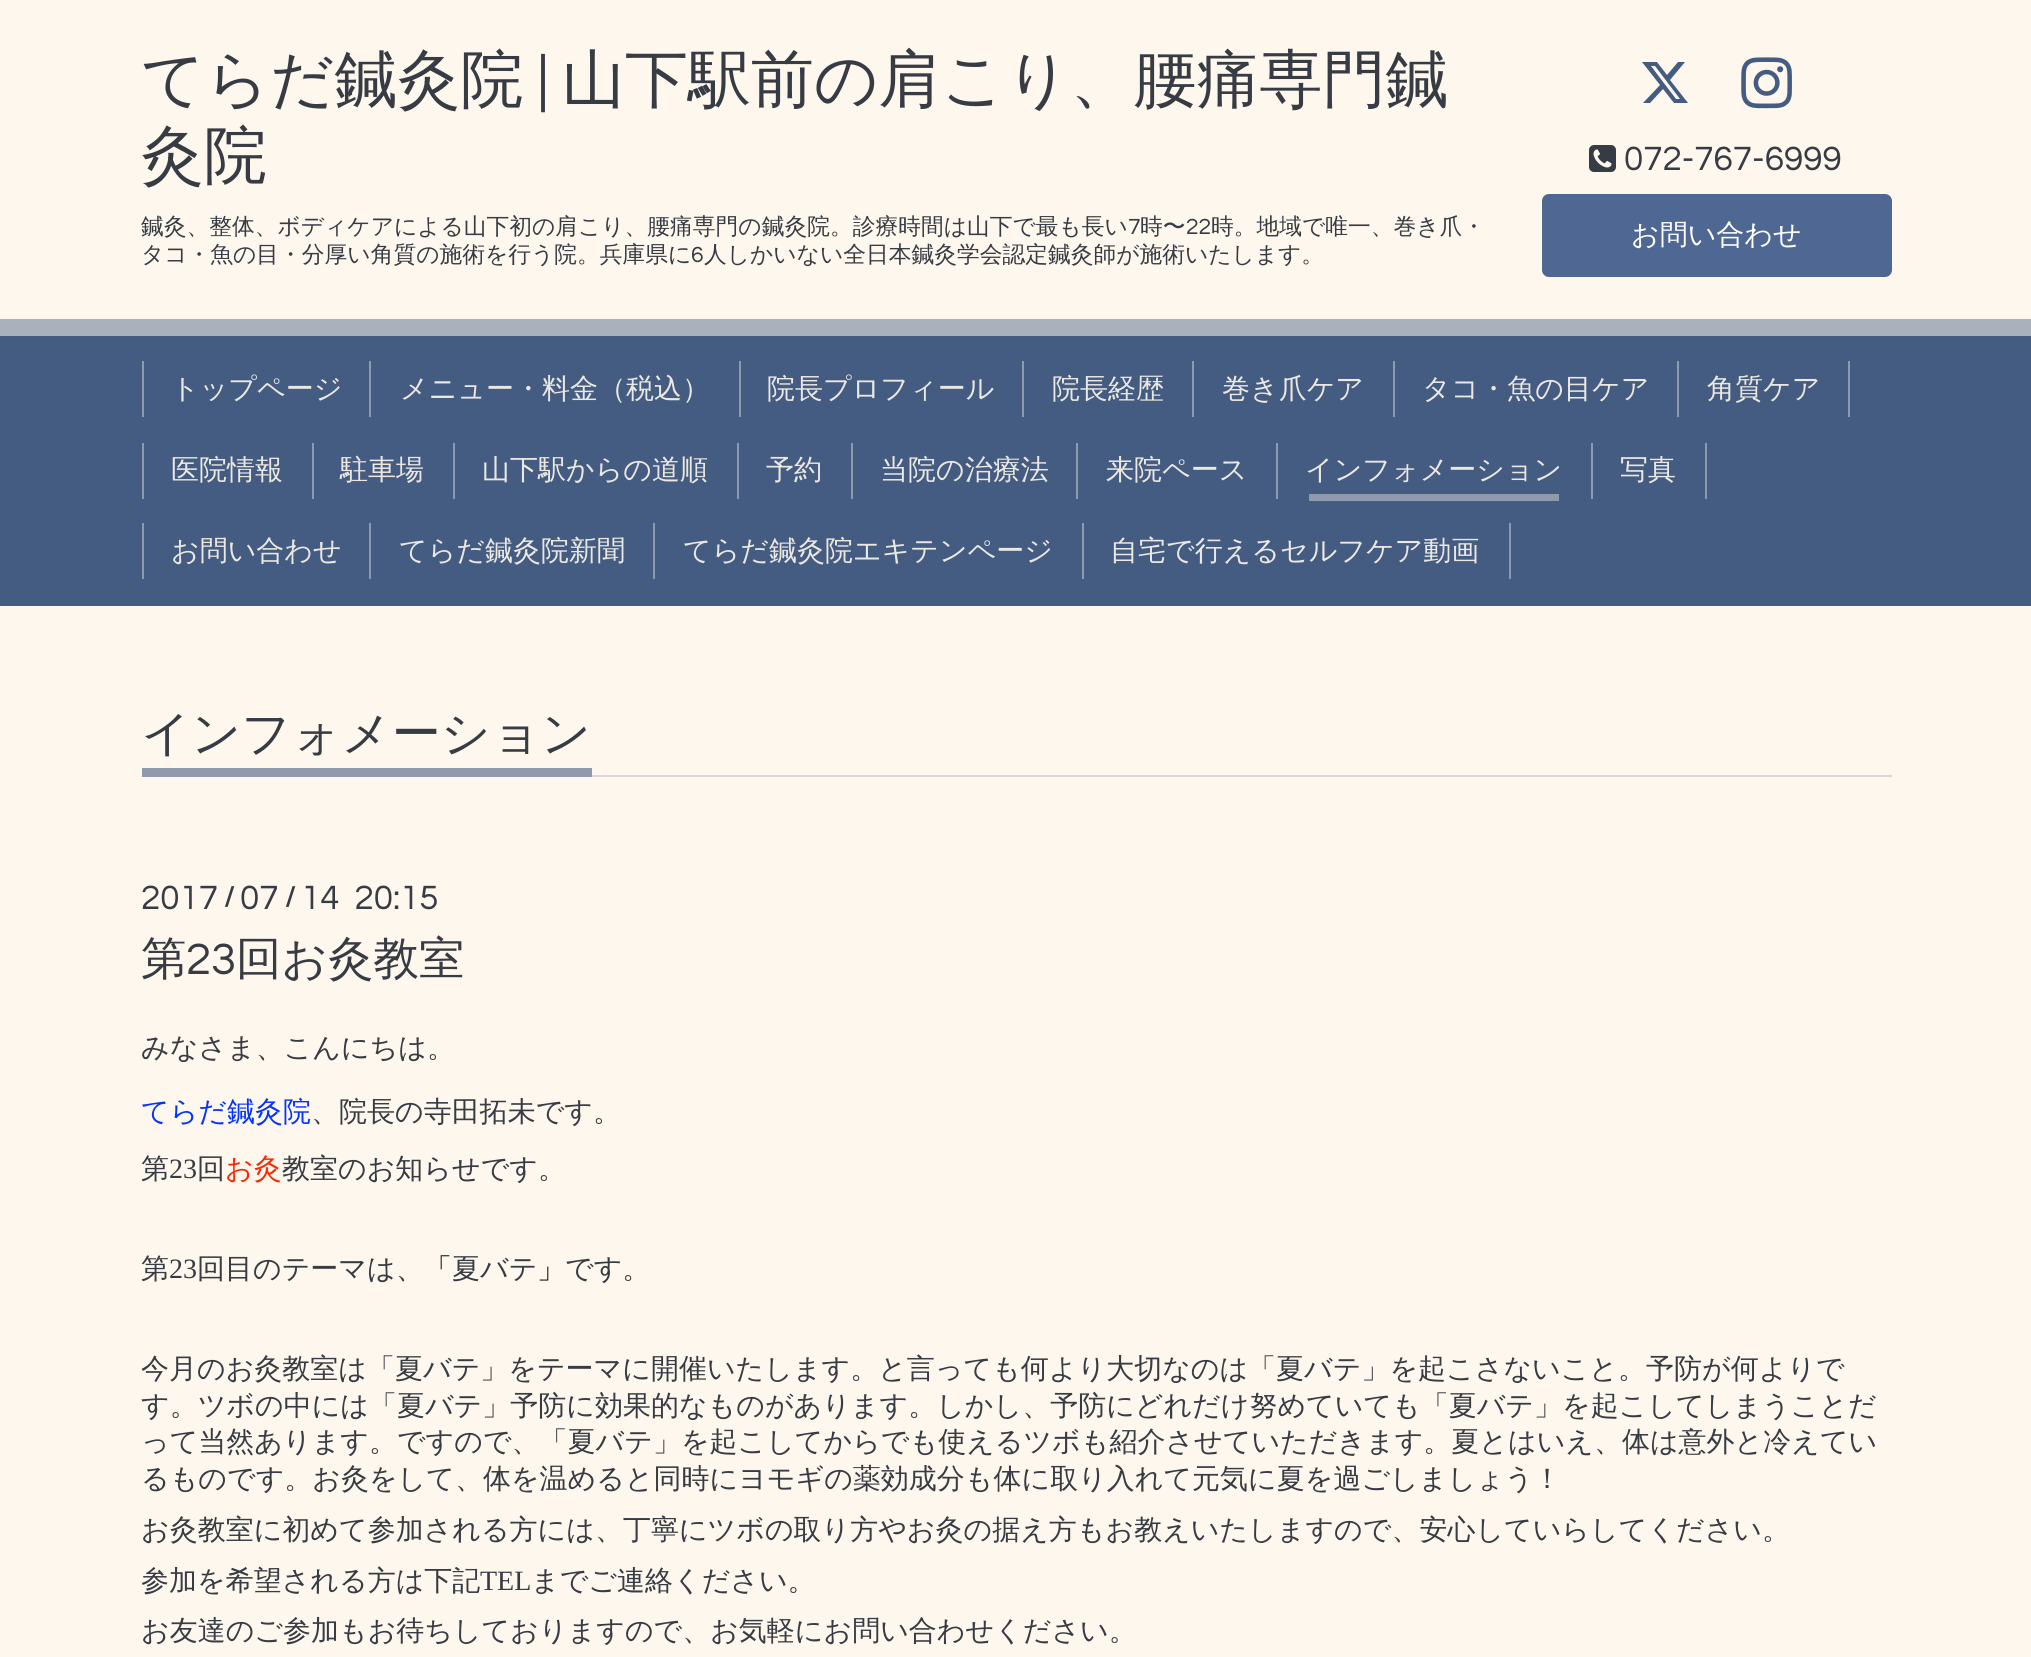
#include <cairo.h>
#include <math.h>
#include <stddef.h>

static cairo_t *c;
static void C(unsigned color){cairo_set_source_rgb(c, (color >> 16) / 255.0, (color >> 8 & 255) / 255.0, (color & 255) / 255.0);}
static void F(const char *family, double size, int italic, int bold){cairo_select_font_face(c, family, italic ? CAIRO_FONT_SLANT_ITALIC : CAIRO_FONT_SLANT_NORMAL,bold ? CAIRO_FONT_WEIGHT_BOLD : CAIRO_FONT_WEIGHT_NORMAL);cairo_set_font_size(c, size);}
static void T(double x, double y, const char *s){cairo_move_to(c, x, y);cairo_show_text(c, s);}
static void R(double x, double y, double w, double h){cairo_rectangle(c, x, y, w, h);cairo_fill(c);}
static void Q(double x, double y, double w, double h, double r){cairo_new_sub_path(c);cairo_arc(c, x + w - r, y + h - r, r, 0, M_PI / 2);cairo_arc(c, x + r, y + h - r, r, M_PI / 2, M_PI);cairo_arc(c, x + r, y + r, r, M_PI, 1.5 * M_PI);cairo_arc(c, x + w - r, y + r, r, 1.5 * M_PI, 2 * M_PI);cairo_close_path(c);}
static void I(const char *path, double x, double y, double w, double h){cairo_surface_t *image = cairo_image_surface_create_from_png(path);cairo_save(c);cairo_set_source_surface(c, image, x, y);cairo_rectangle(c, x, y, w, h);cairo_fill(c);cairo_restore(c);cairo_surface_destroy(image);}
int main(void) {
cairo_surface_t *surface = cairo_image_surface_create(CAIRO_FORMAT_RGB24, 2031, 1657);
c = cairo_create(surface);
cairo_font_options_t *options = cairo_font_options_create();
cairo_font_options_set_hint_metrics(options, CAIRO_HINT_METRICS_OFF);
cairo_font_options_set_hint_style(options, CAIRO_HINT_STYLE_NONE);
cairo_set_font_options(c, options);
cairo_set_miter_limit(c, 4);
C(0xfdf7ed);
cairo_paint(c);
F("WenQuanYi Zen Hei Medium",63,0,0);
C(0x373b43);
T(141,101,"てらだ鍼灸院");
F("Questrial",63,0,0);
T(537,101,"|");
F("WenQuanYi Zen Hei Medium",63,0,0);
T(562,101,"山下駅前の肩こり、腰痛専門鍼");
T(141,177,"灸院");
F("WenQuanYi Zen Hei Medium",22.75,0,0);
T(141,234,"鍼灸、整体、ボディケアによる山下初の肩こり、腰痛専門の鍼灸院。診療時間は山下で最も長い");
F("Questrial",22.75,0,0);
T(1128,234,"7");
F("WenQuanYi Zen Hei Medium",22.75,0,0);
T(1140,234,"時〜");
F("Questrial",22.75,0,0);
T(1186,234,"22");
F("WenQuanYi Zen Hei Medium",22.75,0,0);
T(1211,234,"時。地域で唯一、巻き爪・");
T(141,262,"タコ・魚の目・分厚い角質の施術を行う院。兵庫県に");
F("Questrial",22.75,0,0);
T(691,262,"6");
F("WenQuanYi Zen Hei Medium",22.75,0,0);
T(704,262,"人しかいない全日本鍼灸学会認定鍼灸師が施術いたします。");
C(0x455c82);
cairo_new_path(c);
cairo_move_to(c,1678,62);
cairo_line_to(c,1685,62);
cairo_line_to(c,1670,80);
cairo_line_to(c,1688,103);
cairo_line_to(c,1674,103);
cairo_line_to(c,1663,89);
cairo_line_to(c,1650,103);
cairo_line_to(c,1643,103);
cairo_line_to(c,1660,85);
cairo_line_to(c,1642,62);
cairo_line_to(c,1657,62);
cairo_line_to(c,1667,75);
cairo_close_path(c);
cairo_move_to(c,1676,99);
cairo_line_to(c,1680,99);
cairo_line_to(c,1655,66);
cairo_line_to(c,1651,66);
cairo_close_path(c);
cairo_fill(c);
I("1.png",1741,57,51,52);
I("2.png",1589,145,27,27);
F("Questrial",35,0,0);
C(0x373b43);
T(1624,170,"072-767-6999");
C(0x4e6893);
Q(1543,195,348,81,6);
cairo_fill_preserve(c);
cairo_stroke(c);
F("WenQuanYi Zen Hei Medium",28,0,0);
C(0xffffff);
T(1631,244,"お問い合わせ");
C(0xaab1bd);
R(0,319,2031,17);
C(0x455c82);
R(0,336,2031,270);
C(0x8f9aad);
R(369,361,2,56);
R(142,361,2,56);
C(0xebe8e2);
T(171,398,"トップページ");
C(0x8f9aad);
R(739,361,2,56);
C(0xebe8e2);
T(400,398,"メニュー・料金（税込）");
C(0x8f9aad);
R(1022,361,2,56);
C(0xebe8e2);
T(767,398,"院長プロフィール");
C(0x8f9aad);
R(1192,361,2,56);
C(0xebe8e2);
T(1052,398,"院長経歴");
C(0x8f9aad);
R(1393,361,2,56);
C(0xebe8e2);
T(1222,398,"巻き爪ケア");
C(0x8f9aad);
R(1677,361,2,56);
C(0xebe8e2);
T(1422,398,"タコ・魚の目ケア");
C(0x8f9aad);
R(1848,361,2,56);
C(0xebe8e2);
T(1707,398,"角質ケア");
C(0x8f9aad);
R(312,443,2,56);
R(142,443,2,56);
C(0xebe8e2);
T(171,479,"医院情報");
C(0x8f9aad);
R(453,443,2,56);
C(0xebe8e2);
T(340,479,"駐車場");
C(0x8f9aad);
R(737,443,2,56);
C(0xebe8e2);
T(482,479,"山下駅からの道順");
C(0x8f9aad);
R(851,443,2,56);
C(0xebe8e2);
T(766,479,"予約");
C(0x8f9aad);
R(1076,443,2,56);
C(0xebe8e2);
T(880,479,"当院の治療法");
C(0x8f9aad);
R(1276,443,2,56);
C(0xebe8e2);
T(1106,479,"来院ペース");
C(0x8f9aad);
R(1591,443,2,56);
C(0xebe8e2);
T(1305,479,"インフォメーション");
C(0x8f9aad);
R(1309,494,250,7);
R(1705,443,2,56);
C(0xebe8e2);
T(1620,479,"写真");
C(0x8f9aad);
R(369,523,2,56);
R(142,523,2,56);
C(0xebe8e2);
T(171,560,"お問い合わせ");
C(0x8f9aad);
R(653,523,2,56);
C(0xebe8e2);
T(399,560,"てらだ鍼灸院新聞");
C(0x8f9aad);
R(1082,523,2,56);
C(0xebe8e2);
T(683,560,"てらだ鍼灸院エキテンページ");
C(0x8f9aad);
R(1509,523,2,56);
C(0xebe8e2);
T(1110,560,"自宅で行えるセルフケア動画");
C(0xd8d8d8);
R(592,775,1300,2);
C(0x8f9aad);
R(142,768,450,9);
F("WenQuanYi Zen Hei Medium",49,0,0);
C(0x373b43);
T(141,750,"インフォメーション");
F("Questrial",35,0,0);
T(141,909,"2017");
F("Questrial",28,0,1);
T(224,906,"/");
F("Questrial",35,0,0);
T(240,909,"07");
F("Questrial",28,0,1);
T(285,906,"/");
F("Questrial",35,0,0);
T(301,909,"14  20:15");
F("WenQuanYi Zen Hei Medium",45.5,0,0);
T(141,974,"第");
F("Questrial",45.5,0,0);
T(186,974,"23");
F("WenQuanYi Zen Hei Medium",45.5,0,0);
T(236,974,"回お灸教室");
F("WenQuanYi Zen Hei Medium",28,0,0);
T(141,1057,"みなさま、こんにちは。");
C(0x0433ff);
T(141,1121,"てらだ鍼灸院");
C(0x373b43);
T(311,1121,"、院長の寺田拓未です。");
T(141,1178,"第");
F("Liberation Serif",28,0,0);
T(169,1178,"23");
F("WenQuanYi Zen Hei Medium",28,0,0);
T(197,1178,"回");
C(0xff2600);
T(225,1178,"お灸");
C(0x373b43);
T(282,1178,"教室のお知らせです。");
T(141,1278,"第");
F("Liberation Serif",28,0,0);
T(169,1278,"23");
F("WenQuanYi Zen Hei Medium",28,0,0);
T(197,1278,"回目のテーマは、");
C(0x000000);
T(424,1278,"「");
C(0x373b43);
T(452,1278,"夏バテ");
C(0x000000);
T(537,1278,"」");
C(0x373b43);
T(565,1278,"です。");
T(141,1378,"今月のお灸教室は「夏バテ」をテーマに開催いたします。と言っても何より大切なのは「夏バテ」を起こさないこと。予防が何よりで");
T(141,1415,"す。ツボの中には「夏バテ」予防に効果的なものがあります。しかし、予防にどれだけ努めていても「夏バテ」を起こしてしまうことだ");
T(141,1451,"って当然あります。ですので、「夏バテ」を起こしてからでも使えるツボも紹介させていただきます。夏とはいえ、体は意外と冷えてい");
T(141,1488,"るものです。お灸をして、体を温めると同時にヨモギの薬効成分も体に取り入れて元気に夏を過ごしましょう！");
T(141,1539,"お灸教室に初めて参加される方には、丁寧にツボの取り方やお灸の据え方もお教えいたしますので、安心していらしてください。");
T(141,1590,"参加を希望される方は下記");
F("Liberation Serif",28,0,0);
T(480,1590,"TEL");
F("WenQuanYi Zen Hei Medium",28,0,0);
T(531,1590,"までご連絡ください。");
T(141,1640,"お友達のご参加もお待ちしておりますので、お気軽にお問い合わせください。");
cairo_surface_write_to_png(surface, "o.png");
cairo_font_options_destroy(options);
cairo_destroy(c);
cairo_surface_destroy(surface);
return 0;
}
